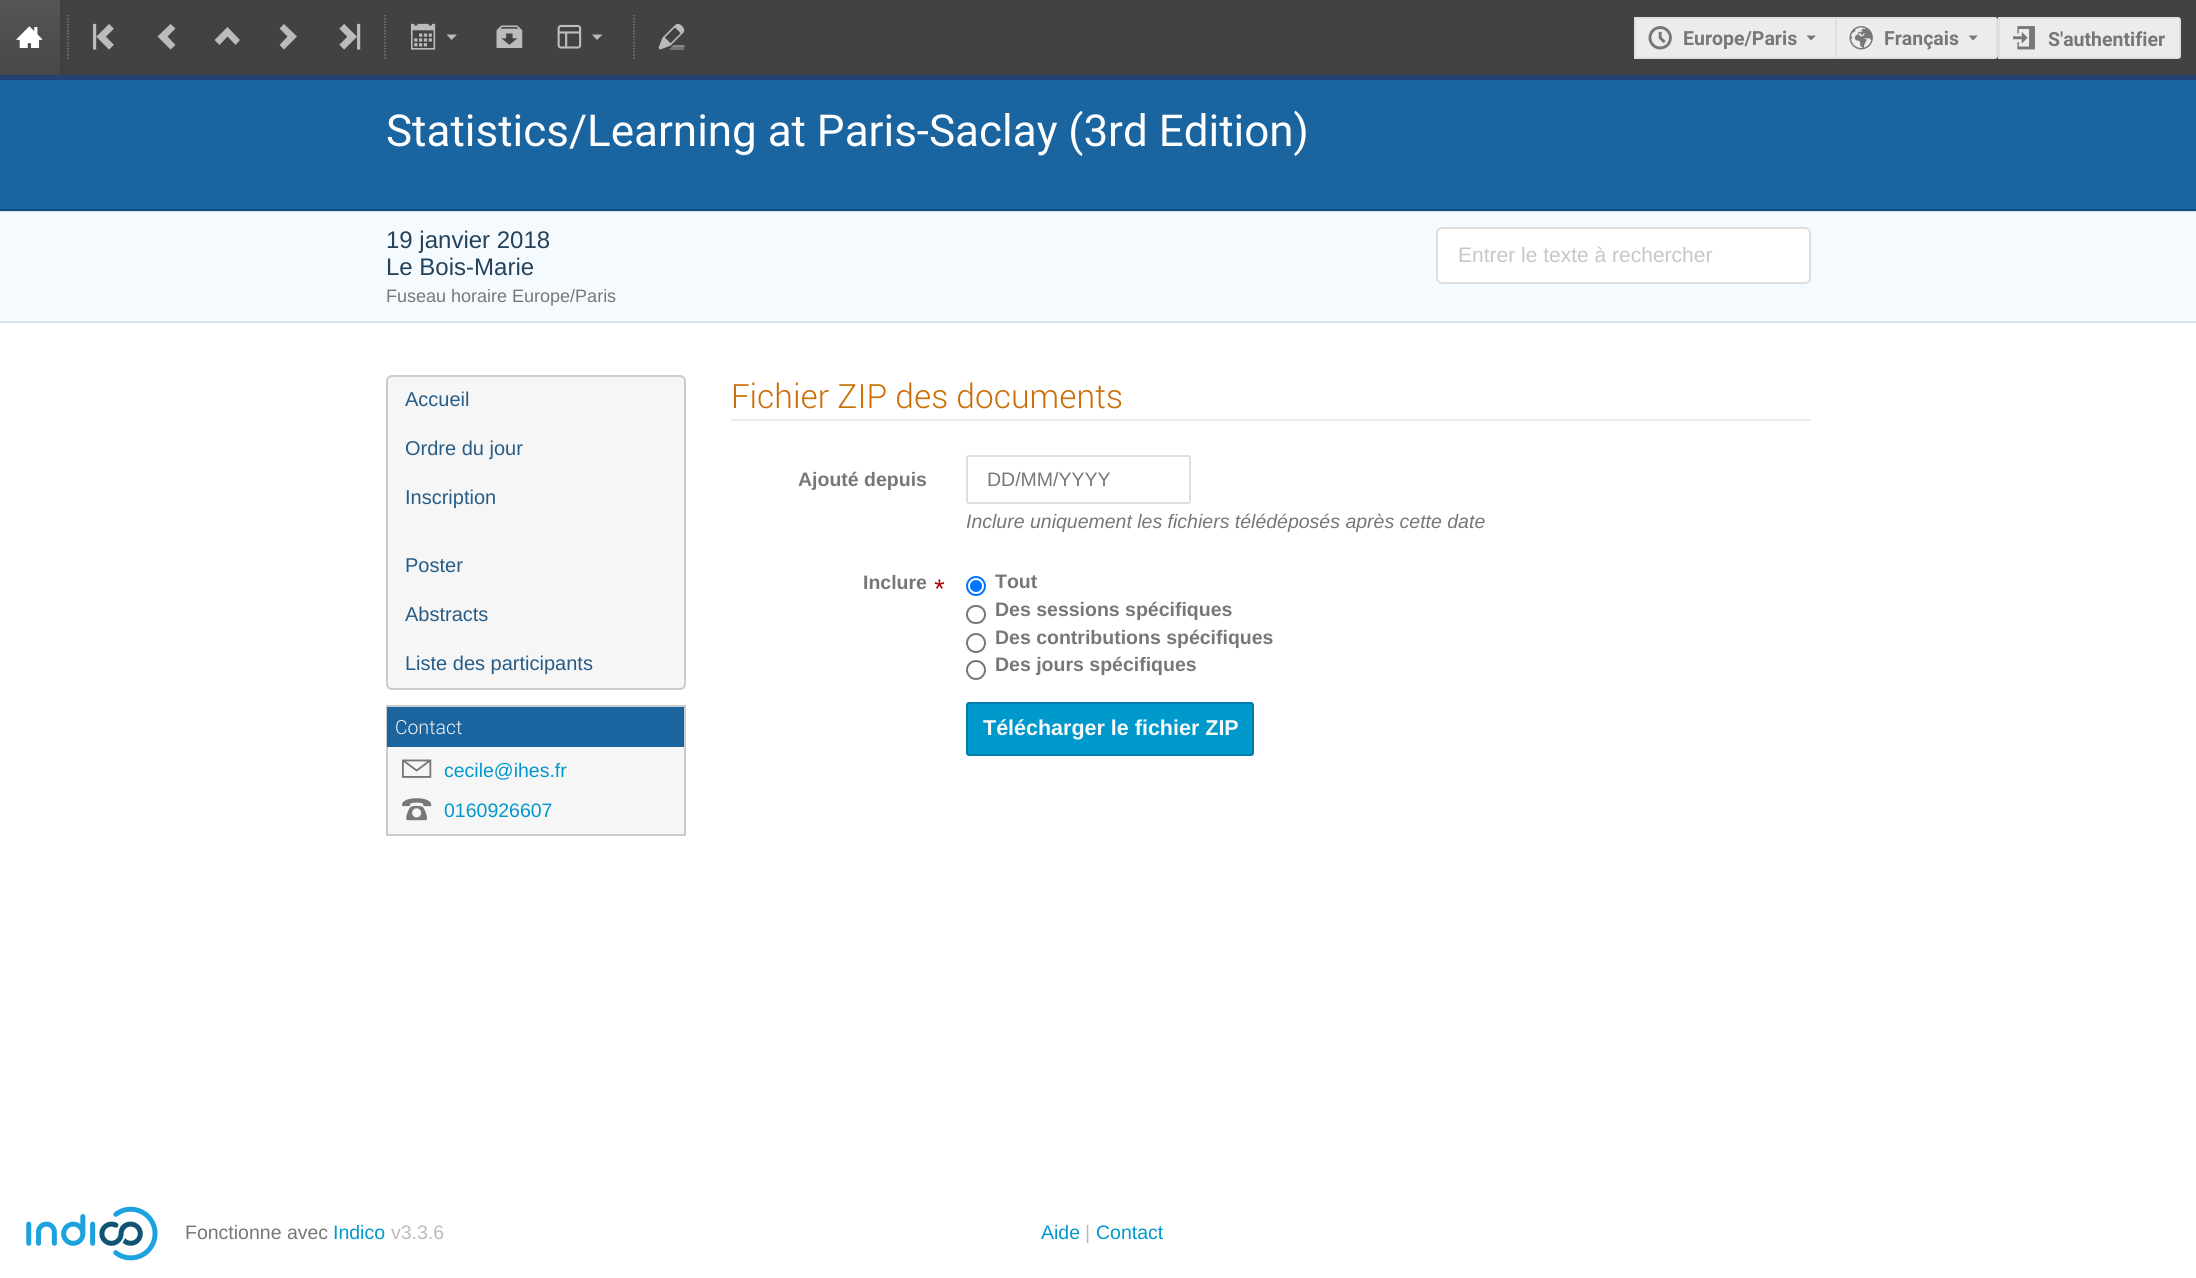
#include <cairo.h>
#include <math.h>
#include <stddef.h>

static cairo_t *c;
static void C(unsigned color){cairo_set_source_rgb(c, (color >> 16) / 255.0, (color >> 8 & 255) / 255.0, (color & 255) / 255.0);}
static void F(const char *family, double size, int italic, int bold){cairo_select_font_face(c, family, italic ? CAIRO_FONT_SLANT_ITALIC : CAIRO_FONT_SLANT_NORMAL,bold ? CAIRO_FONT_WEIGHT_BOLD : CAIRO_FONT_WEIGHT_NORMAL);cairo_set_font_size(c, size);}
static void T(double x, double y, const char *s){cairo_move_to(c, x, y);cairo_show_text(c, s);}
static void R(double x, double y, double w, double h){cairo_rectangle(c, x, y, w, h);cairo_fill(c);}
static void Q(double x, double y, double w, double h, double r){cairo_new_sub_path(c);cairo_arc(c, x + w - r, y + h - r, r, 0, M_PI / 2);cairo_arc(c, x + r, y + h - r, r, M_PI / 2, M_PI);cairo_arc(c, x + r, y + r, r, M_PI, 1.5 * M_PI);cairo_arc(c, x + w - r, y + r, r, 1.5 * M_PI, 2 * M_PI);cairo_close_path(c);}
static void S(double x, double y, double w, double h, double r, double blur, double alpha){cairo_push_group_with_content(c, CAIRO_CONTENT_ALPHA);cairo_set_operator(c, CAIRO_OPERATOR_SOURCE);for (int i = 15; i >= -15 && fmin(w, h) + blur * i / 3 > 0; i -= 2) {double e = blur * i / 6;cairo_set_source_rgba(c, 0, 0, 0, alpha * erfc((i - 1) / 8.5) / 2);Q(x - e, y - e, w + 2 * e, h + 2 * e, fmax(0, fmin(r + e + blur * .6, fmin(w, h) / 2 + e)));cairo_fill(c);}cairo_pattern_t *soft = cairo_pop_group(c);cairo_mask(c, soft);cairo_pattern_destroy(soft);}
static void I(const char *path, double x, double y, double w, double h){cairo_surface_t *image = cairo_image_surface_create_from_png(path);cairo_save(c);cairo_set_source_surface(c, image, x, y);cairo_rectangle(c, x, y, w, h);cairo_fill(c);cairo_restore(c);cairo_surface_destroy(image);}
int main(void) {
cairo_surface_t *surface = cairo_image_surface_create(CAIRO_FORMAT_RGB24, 2196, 1278);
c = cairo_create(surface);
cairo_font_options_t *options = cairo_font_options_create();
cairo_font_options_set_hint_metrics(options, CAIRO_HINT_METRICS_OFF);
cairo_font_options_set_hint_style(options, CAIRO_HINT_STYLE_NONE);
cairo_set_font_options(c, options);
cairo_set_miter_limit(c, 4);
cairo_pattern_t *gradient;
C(0xffffff);
cairo_paint(c);
C(0x424242);
R(60,0,2136,75);
C(0x141414);
S(2,2,60,75,0,3,.1);
gradient = cairo_pattern_create_linear(30,0,30,75);
cairo_pattern_add_color_stop_rgba(gradient,0,0.333,0.333,0.333,1);
cairo_pattern_add_color_stop_rgba(gradient,1,0.282,0.282,0.282,1);
cairo_set_source(c,gradient);
cairo_pattern_destroy(gradient);
R(0,0,60,75);
I("1.png",16,26,27,22);
cairo_new_path(c);
cairo_move_to(c,68,15);
cairo_line_to(c,68,60);
C(0x777777);
cairo_set_line_width(c,1.5);
cairo_set_dash(c,(double[]){1.5,1.5},2,0);
cairo_stroke(c);
I("2.png",93,23,21,27);
C(0xbbbbbb);
cairo_new_path(c);
cairo_move_to(c,170.5,49.5);
cairo_line_to(c,175.5,45);
cairo_line_to(c,167.5,36.5);
cairo_line_to(c,175.5,28.5);
cairo_line_to(c,170.5,24);
cairo_line_to(c,157.5,36.5);
cairo_close_path(c);
cairo_fill(c);
cairo_new_path(c);
cairo_move_to(c,214.5,40);
cairo_line_to(c,219.5,45);
cairo_line_to(c,227.5,36.5);
cairo_line_to(c,235.5,45);
cairo_line_to(c,240,40);
cairo_line_to(c,227.5,27);
cairo_close_path(c);
cairo_fill(c);
cairo_new_path(c);
cairo_move_to(c,284,24);
cairo_line_to(c,279.5,28.5);
cairo_line_to(c,287.5,36.5);
cairo_line_to(c,279.5,45);
cairo_line_to(c,284,49.5);
cairo_line_to(c,297,36.5);
cairo_close_path(c);
cairo_fill(c);
I("3.png",339,23,22,27);
cairo_new_path(c);
cairo_move_to(c,385,15);
cairo_line_to(c,385,60);
C(0x777777);
cairo_stroke(c);
I("4.png",411,23,25,27);
C(0xbbbbbb);
cairo_new_path(c);
cairo_move_to(c,446.5,34.5);
cairo_line_to(c,451.5,40);
cairo_line_to(c,457,34.5);
cairo_close_path(c);
cairo_fill(c);
I("5.png",496,25,27,23);
I("6.png",557,24,25,25);
cairo_new_path(c);
cairo_move_to(c,592,34.5);
cairo_line_to(c,597,40);
cairo_line_to(c,602.5,34.5);
cairo_close_path(c);
cairo_fill(c);
cairo_new_path(c);
cairo_move_to(c,634,15);
cairo_line_to(c,634,60);
C(0x777777);
cairo_stroke(c);
I("7.png",658,23,27,27);
C(0xececec);
R(1636,19,199,38);
C(0xdfdfdf);
R(1634,17,201,2);
R(1634,57,201,2);
R(1634,17,2,42);
I("8.png",1648,26,24,24);
F("Roboto",19.5,0,1);
C(0x777777);
T(1683,45,"Europe/Paris");
cairo_new_path(c);
cairo_move_to(c,1806.5,35.5);
cairo_line_to(c,1811,40.5);
cairo_line_to(c,1816,35.5);
cairo_close_path(c);
cairo_fill(c);
C(0xececec);
cairo_new_path(c);
cairo_move_to(c,1836,18);
cairo_line_to(c,1995,18);
cairo_curve_to(c,1996,18,1997,19,1997,20);
cairo_line_to(c,1997,56);
cairo_curve_to(c,1997,57,1996,58,1995,58);
cairo_line_to(c,1836,58);
cairo_close_path(c);
cairo_fill_preserve(c);
C(0xdfdfdf);
cairo_set_line_width(c,2);
cairo_set_dash(c,NULL,0,0);
cairo_stroke(c);
I("9.png",1849,26,24,24);
C(0x777777);
T(1884,45,"Français");
cairo_new_path(c);
cairo_move_to(c,1968.5,35.5);
cairo_line_to(c,1973,40.5);
cairo_line_to(c,1978,35.5);
cairo_close_path(c);
cairo_fill(c);
C(0xececec);
cairo_new_path(c);
cairo_move_to(c,1999,18);
cairo_line_to(c,2178,18);
cairo_curve_to(c,2179,18,2180,19,2180,20);
cairo_line_to(c,2180,56);
cairo_curve_to(c,2180,57,2179,58,2178,58);
cairo_line_to(c,1999,58);
cairo_close_path(c);
cairo_fill_preserve(c);
C(0xdfdfdf);
cairo_stroke(c);
I("10.png",2013,26,22,24);
C(0x777777);
T(2048,46,"S'authentifier");
C(0x1a64a0);
R(0,80,2196,129);
C(0x234173);
R(0,75,2196,5);
C(0x0f4c80);
R(0,209,2196,2);
F("Roboto",44,0,0);
C(0xffffff);
T(386,146,"Statistics/Learning at Paris-Saclay (3rd Edition)");
C(0xf5faff);
R(0,212,2196,109);
C(0xd5e4f1);
R(0,211,2196,1);
R(0,321,2196,2);
F("Liberation Sans",24,0,0);
C(0x24425a);
T(386,248,"19 janvier 2018");
T(386,275,"Le Bois-Marie");
F("Liberation Sans",18,0,0);
C(0x777777);
T(386,302,"Fuseau horaire Europe/Paris");
C(0xffffff);
Q(1437,228,373,55,5);
cairo_fill_preserve(c);
C(0xdedede);
cairo_stroke(c);
F("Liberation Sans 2",21,0,0);
C(0xc7c7c7);
T(1458,262,"Entrer le texte à rechercher");
C(0xf6f6f6);
Q(387,376,298,313,5);
cairo_fill_preserve(c);
C(0xcccccc);
cairo_stroke(c);
F("Liberation Sans 2",20,0,0);
C(0x275c86);
T(405,406,"Accueil");
T(405,455,"Ordre du jour");
T(405,504,"Inscription");
T(405,572,"Poster");
T(405,621,"Abstracts");
T(405,670,"Liste des participants");
C(0xf6f6f6);
R(388,747,296,87);
cairo_rectangle(c,387,706,298,129);
C(0xcccccc);
cairo_stroke(c);
C(0x1a64a0);
R(387,707,297,40);
F("Roboto Light",19.5,0,0);
C(0xf3f3f3);
T(395,734,"Contact");
I("11.png",402,759,30,19);
F("Liberation Sans",19.5,0,0);
C(0x0099cc);
T(444,777,"cecile@ihes.fr");
I("12.png",402,798,30,23);
T(444,817,"0160926607");
C(0xebebeb);
R(731,419,1080,2);
F("Roboto Light",33.5,0,0);
C(0xcb6d04);
T(731,408,"Fichier ZIP des documents");
F("Liberation Sans",19.5,0,1);
C(0x777777);
T(798,486,"Ajouté depuis");
Q(967,456,223,47,2);
C(0xdfdfdf);
cairo_stroke(c);
F("Liberation Sans",19.5,0,0);
C(0x777777);
T(987,486,"DD/MM/YYYY");
F("Liberation Sans",19.5,1,0);
T(966,528,"Inclure uniquement les fichiers télédéposés après cette date");
F("Liberation Sans",19.5,0,1);
T(863,589,"Inclure");
F("Liberation Sans",27,1,0);
C(0xaf0000);
T(933,598,"*");
cairo_new_path(c);
cairo_arc(c,976,586,9,0,2 * M_PI);
C(0x0075ff);
cairo_stroke(c);
cairo_arc(c,976,586,6,0,2 * M_PI);
cairo_fill(c);
F("Liberation Sans",19.5,0,1);
C(0x777777);
T(995,588,"Tout");
Q(967,606,18,17,8.5);
C(0x767676);
cairo_stroke(c);
C(0x777777);
T(995,616,"Des sessions spécifiques");
cairo_new_path(c);
cairo_arc(c,976,643,9,0,2 * M_PI);
C(0x767676);
cairo_stroke(c);
C(0x777777);
T(995,644,"Des contributions spécifiques");
cairo_new_path(c);
cairo_arc(c,976,670,9,0,2 * M_PI);
C(0x767676);
cairo_stroke(c);
C(0x777777);
T(995,671,"Des jours spécifiques");
C(0x0099cc);
Q(967,703,286,52,2);
cairo_fill_preserve(c);
C(0x007cac);
cairo_stroke(c);
F("Liberation Sans",21.5,0,1);
C(0xf9f9f9);
T(983,735,"Télécharger le fichier ZIP");
I("13.png",26,1206,132,55);
F("Liberation Sans",19.5,0,0);
C(0x777777);
T(185,1239,"Fonctionne avec");
C(0x0099cc);
T(333,1239,"Indico");
C(0xbbbbbb);
T(391,1239,"v3.3.6");
C(0x0099cc);
T(1041,1239,"Aide");
C(0xbbbbbb);
T(1085,1239,"|");
C(0x0099cc);
T(1096,1239,"Contact");
cairo_surface_write_to_png(surface, "o.png");
cairo_font_options_destroy(options);
cairo_destroy(c);
cairo_surface_destroy(surface);
return 0;
}
